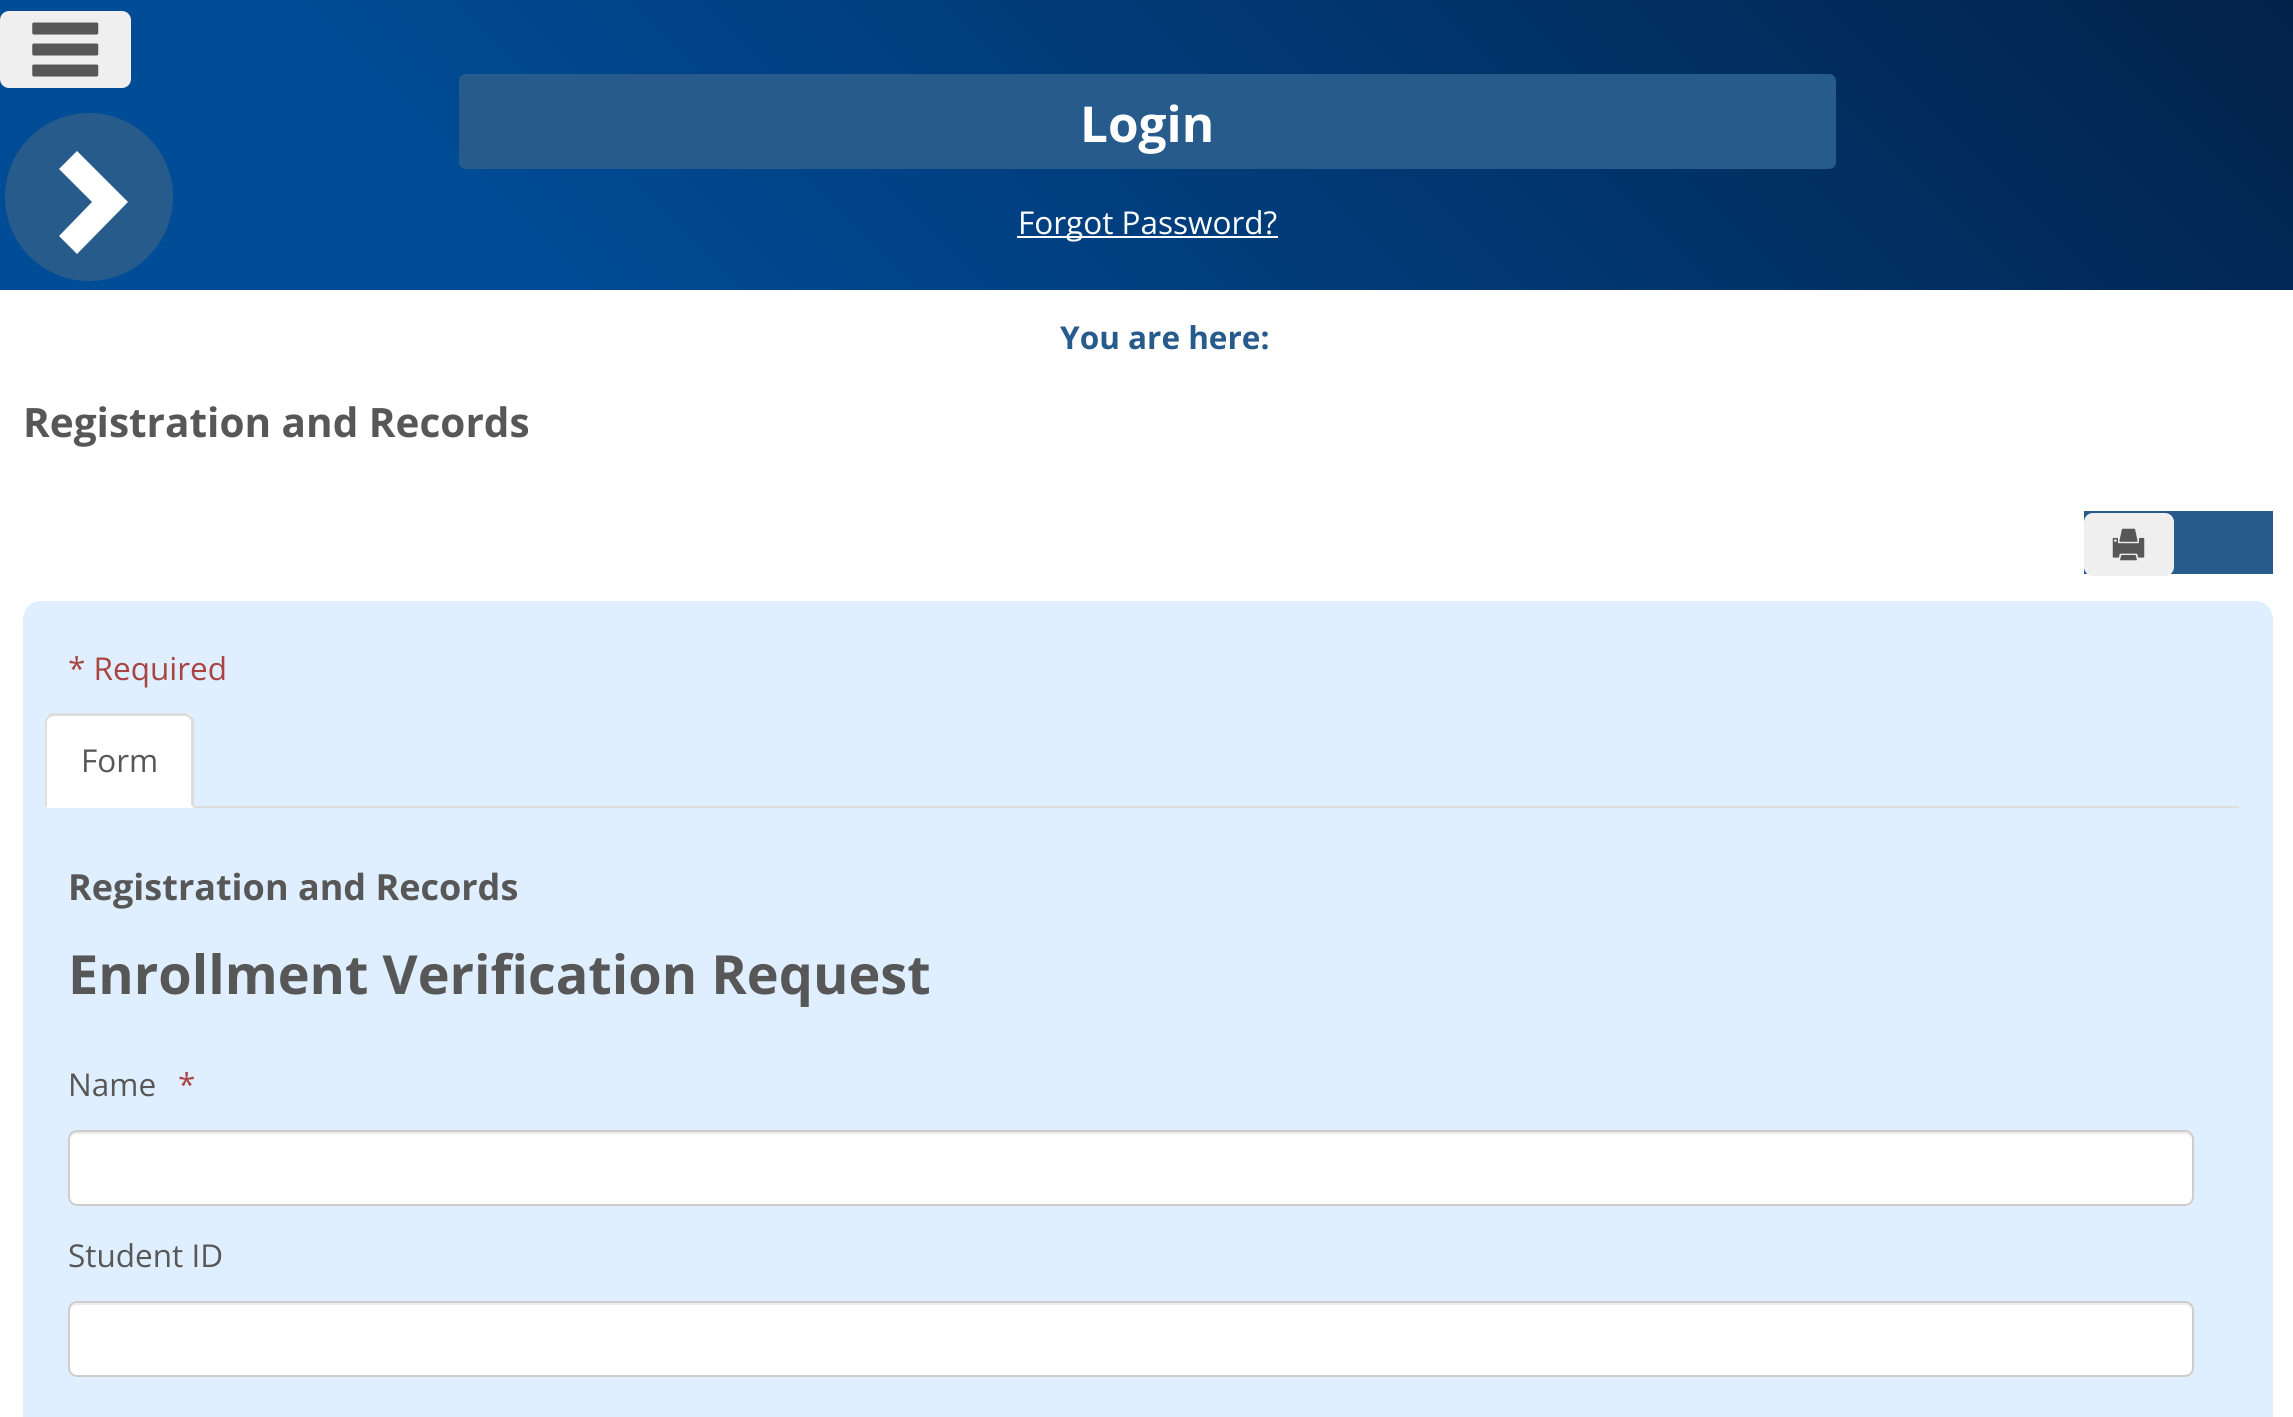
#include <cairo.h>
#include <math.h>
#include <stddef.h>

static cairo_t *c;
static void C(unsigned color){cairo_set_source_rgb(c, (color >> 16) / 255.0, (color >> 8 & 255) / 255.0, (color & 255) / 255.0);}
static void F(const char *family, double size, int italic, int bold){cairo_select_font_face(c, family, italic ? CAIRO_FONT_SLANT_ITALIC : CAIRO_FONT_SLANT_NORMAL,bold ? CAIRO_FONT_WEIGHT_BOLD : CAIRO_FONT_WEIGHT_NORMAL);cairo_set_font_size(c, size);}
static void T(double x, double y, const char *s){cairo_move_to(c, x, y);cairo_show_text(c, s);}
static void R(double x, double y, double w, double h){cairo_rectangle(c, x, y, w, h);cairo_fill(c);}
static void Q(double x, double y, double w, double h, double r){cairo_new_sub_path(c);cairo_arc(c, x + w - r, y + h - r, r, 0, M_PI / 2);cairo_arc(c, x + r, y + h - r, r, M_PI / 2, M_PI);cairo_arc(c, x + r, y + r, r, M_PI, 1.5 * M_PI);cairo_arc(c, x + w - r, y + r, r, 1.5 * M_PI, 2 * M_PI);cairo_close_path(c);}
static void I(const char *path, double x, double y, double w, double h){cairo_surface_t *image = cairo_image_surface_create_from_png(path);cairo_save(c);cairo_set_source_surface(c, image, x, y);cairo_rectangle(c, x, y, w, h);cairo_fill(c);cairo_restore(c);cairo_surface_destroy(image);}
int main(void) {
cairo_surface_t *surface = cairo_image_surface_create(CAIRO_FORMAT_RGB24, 2293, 1417);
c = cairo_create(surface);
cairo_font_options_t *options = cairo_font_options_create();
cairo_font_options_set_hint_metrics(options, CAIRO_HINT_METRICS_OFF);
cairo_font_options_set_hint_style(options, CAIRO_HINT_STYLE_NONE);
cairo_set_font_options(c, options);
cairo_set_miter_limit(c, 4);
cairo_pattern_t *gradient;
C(0xffffff);
cairo_paint(c);
gradient = cairo_pattern_create_linear(456,746,1839,-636);
cairo_pattern_add_color_stop_rgba(gradient,.19,0,0.298,0.592,1);
cairo_pattern_add_color_stop_rgba(gradient,1,0.008,0.118,0.263,1);
cairo_set_source(c,gradient);
cairo_pattern_destroy(gradient);
R(0,0,2293,290);
C(0xefefef);
Q(0,11,131,77,9);
cairo_fill(c);
I("1.png",32,22,67,55);
C(0x265b8c);
Q(459,74,1377,95,7);
cairo_fill(c);
F("Open Sans",49.5,0,1);
C(0xffffff);
T(1080,142,"Login");
R(1017,236,261,2);
F("Open Sans",31.5,0,0);
T(1018,234,"Forgot Password?");
F("Open Sans",31.5,0,1);
C(0x265b8c);
T(1060,349,"You are here:");
cairo_new_path(c);
cairo_arc(c,89,197,84,0,2 * M_PI);
cairo_fill(c);
C(0xffffff);
cairo_new_path(c);
cairo_move_to(c,77,254);
cairo_line_to(c,59,236);
cairo_line_to(c,92,202);
cairo_line_to(c,59,169);
cairo_line_to(c,77,151);
cairo_line_to(c,128,202);
cairo_close_path(c);
cairo_fill(c);
F("Open Sans",40.5,0,1);
C(0x575757);
T(23,437,"Registration and Records");
C(0x265b8c);
R(2084,511,189,63);
C(0xefefef);
Q(2084,513,90,63,9);
cairo_fill(c);
I("2.png",2112,528,33,33);
C(0xe0efff);
Q(23,601,2250,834,18);
cairo_fill(c);
F("Open Sans",31.5,0,0);
C(0xa94442);
T(68,680,"* Required");
C(0xdddddd);
R(194,806,2045,2);
C(0xffffff);
cairo_new_path(c);
cairo_move_to(c,54,713);
cairo_line_to(c,185,713);
cairo_curve_to(c,190,713,194,717,194,722);
cairo_line_to(c,194,808);
cairo_line_to(c,45,808);
cairo_line_to(c,45,722);
cairo_curve_to(c,45,717,49,713,54,713);
cairo_close_path(c);
cairo_fill(c);
C(0xdddddd);
cairo_new_path(c);
cairo_move_to(c,54,716);
cairo_curve_to(c,52,716,51,717,49,718);
cairo_line_to(c,48,716);
cairo_curve_to(c,48,715,50,713,52,713);
cairo_line_to(c,186,713);
cairo_line_to(c,191,716);
cairo_line_to(c,189,718);
cairo_curve_to(c,188,717,186,716,184,716);
cairo_close_path(c);
cairo_fill(c);
cairo_new_path(c);
cairo_move_to(c,191,716);
cairo_line_to(c,194,719);
cairo_line_to(c,194,808);
cairo_line_to(c,191,805);
cairo_line_to(c,191,721);
cairo_line_to(c,189,718);
cairo_close_path(c);
cairo_fill(c);
cairo_new_path(c);
cairo_move_to(c,45,808);
cairo_line_to(c,47,806);
cairo_line_to(c,47,721);
cairo_line_to(c,49,718);
cairo_line_to(c,48,716);
cairo_curve_to(c,46,717,45,720,45,722);
cairo_close_path(c);
cairo_fill(c);
C(0x575757);
T(81,772,"Form");
F("Open Sans",36,0,1);
T(68,900,"Registration and Records");
F("Open Sans",54,0,1);
T(68,994,"Enrollment Verification Request");
F("Open Sans",31.5,0,0);
T(68,1096,"Name");
C(0xa94442);
T(178,1096,"*");
C(0xffffff);
Q(68,1130,2126,76,9);
cairo_fill(c);
C(0xececec);
cairo_new_path(c);
cairo_move_to(c,76,1134);
cairo_line_to(c,2185,1134);
cairo_curve_to(c,2188,1134,2192,1137,2192,1141);
cairo_curve_to(c,2192,1137,2190,1132,2185,1132);
cairo_line_to(c,77,1132);
cairo_curve_to(c,72,1132,70,1137,70,1141);
cairo_curve_to(c,70,1137,73,1134,76,1134);
cairo_close_path(c);
cairo_fill(c);
Q(69,1131,2124,74,8);
C(0xcccccc);
cairo_stroke(c);
C(0x575757);
T(68,1267,"Student ID");
C(0xffffff);
Q(68,1301,2126,76,9);
cairo_fill(c);
C(0xececec);
cairo_new_path(c);
cairo_move_to(c,76,1305);
cairo_line_to(c,2185,1305);
cairo_curve_to(c,2188,1305,2192,1308,2192,1312);
cairo_curve_to(c,2192,1308,2190,1303,2185,1303);
cairo_line_to(c,77,1303);
cairo_curve_to(c,72,1303,70,1308,70,1312);
cairo_curve_to(c,70,1308,73,1305,76,1305);
cairo_close_path(c);
cairo_fill(c);
Q(69,1302,2124,74,8);
C(0xcccccc);
cairo_stroke(c);
cairo_surface_write_to_png(surface, "o.png");
cairo_font_options_destroy(options);
cairo_destroy(c);
cairo_surface_destroy(surface);
return 0;
}
